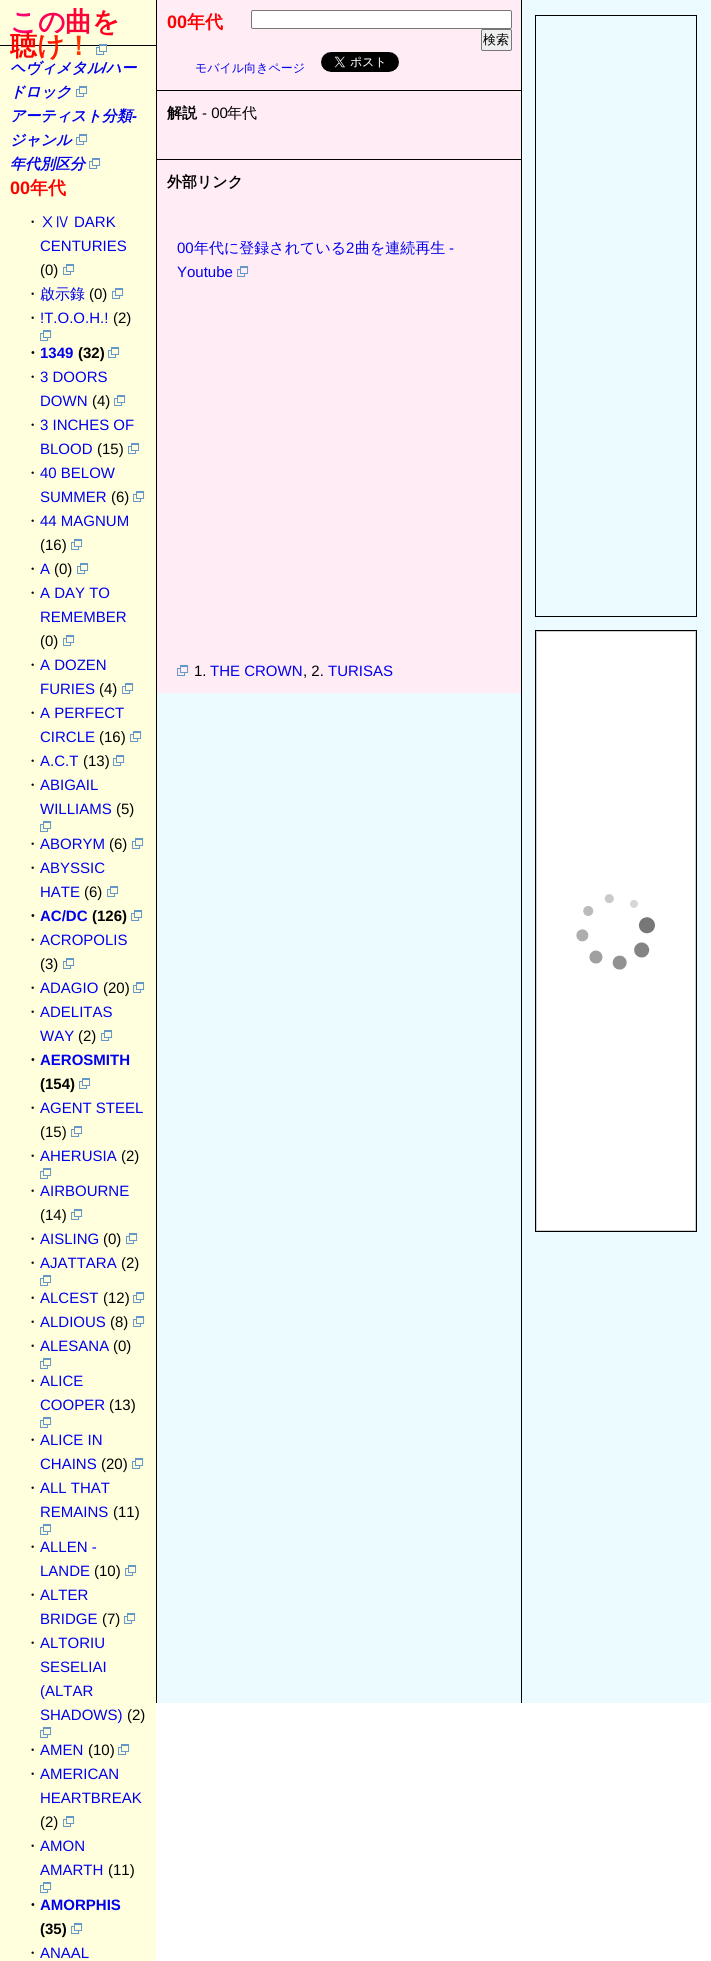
#include <cairo.h>
#include <math.h>
#include <stddef.h>

static cairo_t *c;
static void C(unsigned color){cairo_set_source_rgb(c, (color >> 16) / 255.0, (color >> 8 & 255) / 255.0, (color & 255) / 255.0);}
static void F(const char *family, double size, int italic, int bold){cairo_select_font_face(c, family, italic ? CAIRO_FONT_SLANT_ITALIC : CAIRO_FONT_SLANT_NORMAL,bold ? CAIRO_FONT_WEIGHT_BOLD : CAIRO_FONT_WEIGHT_NORMAL);cairo_set_font_size(c, size);}
static void T(double x, double y, const char *s){cairo_move_to(c, x, y);cairo_show_text(c, s);}
static void R(double x, double y, double w, double h){cairo_rectangle(c, x, y, w, h);cairo_fill(c);}
static void Q(double x, double y, double w, double h, double r){cairo_new_sub_path(c);cairo_arc(c, x + w - r, y + h - r, r, 0, M_PI / 2);cairo_arc(c, x + r, y + h - r, r, M_PI / 2, M_PI);cairo_arc(c, x + r, y + r, r, M_PI, 1.5 * M_PI);cairo_arc(c, x + w - r, y + r, r, 1.5 * M_PI, 2 * M_PI);cairo_close_path(c);}
static void I(const char *path, double x, double y, double w, double h){cairo_surface_t *image = cairo_image_surface_create_from_png(path);cairo_save(c);cairo_set_source_surface(c, image, x, y);cairo_rectangle(c, x, y, w, h);cairo_fill(c);cairo_restore(c);cairo_surface_destroy(image);}
int main(void) {
cairo_surface_t *surface = cairo_image_surface_create(CAIRO_FORMAT_RGB24, 711, 1961);
c = cairo_create(surface);
cairo_font_options_t *options = cairo_font_options_create();
cairo_font_options_set_hint_metrics(options, CAIRO_HINT_METRICS_OFF);
cairo_font_options_set_hint_style(options, CAIRO_HINT_STYLE_NONE);
cairo_set_font_options(c, options);
cairo_set_miter_limit(c, 4);
C(0xffffff);
cairo_paint(c);
C(0xffffdd);
R(0,0,156,1961);
C(0x000000);
R(0,45,156,1);
F("WenQuanYi Zen Hei",27,0,1);
C(0xff006f);
T(10,31,"こ");
C(0xff0054);
T(38,31,"の");
C(0xff0038);
T(65,31,"曲");
C(0xff001d);
T(92,31,"を");
C(0xff0000);
T(10,55,"聴");
C(0xff1a00);
T(37,55,"け");
C(0xff3500);
T(65,55,"！");
I("1.png",96,44,12,11);
F("WenQuanYi Zen Hei",15,1,1);
C(0x0000ee);
T(10,73,"ヘヴィメタル");
F("Liberation Sans",15,1,1);
T(102,73,"/");
F("WenQuanYi Zen Hei",15,1,1);
T(106,73,"ハー");
T(10,97,"ドロック");
I("2.png",76,86,12,11);
T(10,121,"アーティスト分類");
F("Liberation Sans",15,1,1);
T(132,121,"-");
F("WenQuanYi Zen Hei",15,1,1);
T(10,145,"ジャンル");
I("2.png",76,134,12,11);
T(10,169,"年代別区分");
I("2.png",89,158,12,11);
F("Liberation Sans",18,0,1);
C(0xff0000);
T(10,194,"00");
F("WenQuanYi Zen Hei",18,0,1);
T(30,194,"年代");
F("WenQuanYi Zen Hei Medium",15,0,0);
C(0x000000);
T(25,227,"・");
C(0x0000ee);
T(40,227,"ⅩⅣ");
F("Liberation Sans",15,0,0);
T(74,227,"DARK");
T(40,251,"CENTURIES");
C(0x000000);
T(40,275,"(0)");
I("2.png",63,264,12,11);
F("WenQuanYi Zen Hei Medium",15,0,0);
T(25,299,"・");
C(0x0000ee);
T(40,299,"啟示錄");
F("Liberation Sans",15,0,0);
C(0x000000);
T(89,299,"(0)");
I("2.png",112,288,12,11);
F("WenQuanYi Zen Hei Medium",15,0,0);
T(25,323,"・");
F("Liberation Sans",15,0,0);
C(0x0000ee);
T(40,323,"!T.O.O.H.!");
C(0x000000);
T(113,323,"(2)");
I("2.png",40,330,12,11);
F("WenQuanYi Zen Hei",15,0,1);
T(25,358,"・");
F("Liberation Sans",15,0,1);
C(0x0000ee);
T(40,358,"1349");
C(0x000000);
T(78,358,"(32)");
I("2.png",108,347,12,11);
F("WenQuanYi Zen Hei Medium",15,0,0);
T(25,382,"・");
F("Liberation Sans",15,0,0);
C(0x0000ee);
T(40,382,"3 DOORS");
T(40,406,"DOWN");
C(0x000000);
T(92,406,"(4)");
I("2.png",114,395,12,11);
F("WenQuanYi Zen Hei Medium",15,0,0);
T(25,430,"・");
F("Liberation Sans",15,0,0);
C(0x0000ee);
T(40,430,"3 INCHES OF");
T(40,454,"BLOOD");
C(0x000000);
T(97,454,"(15)");
I("2.png",128,443,12,11);
F("WenQuanYi Zen Hei Medium",15,0,0);
T(25,478,"・");
F("Liberation Sans",15,0,0);
C(0x0000ee);
T(40,478,"40 BELOW");
T(40,502,"SUMMER");
C(0x000000);
T(111,502,"(6)");
I("2.png",133,491,12,11);
F("WenQuanYi Zen Hei Medium",15,0,0);
T(25,526,"・");
F("Liberation Sans",15,0,0);
C(0x0000ee);
T(40,526,"44 MAGNUM");
C(0x000000);
T(40,550,"(16)");
I("2.png",71,539,12,11);
F("WenQuanYi Zen Hei Medium",15,0,0);
T(25,574,"・");
F("Liberation Sans",15,0,0);
C(0x0000ee);
T(40,574,"A");
C(0x000000);
T(54,574,"(0)");
I("2.png",77,563,12,11);
F("WenQuanYi Zen Hei Medium",15,0,0);
T(25,598,"・");
F("Liberation Sans",15,0,0);
C(0x0000ee);
T(40,598,"A DAY TO");
T(40,622,"REMEMBER");
C(0x000000);
T(40,646,"(0)");
I("2.png",63,635,12,11);
F("WenQuanYi Zen Hei Medium",15,0,0);
T(25,670,"・");
F("Liberation Sans",15,0,0);
C(0x0000ee);
T(40,670,"A DOZEN");
T(40,694,"FURIES");
C(0x000000);
T(99,694,"(4)");
I("2.png",122,683,12,11);
F("WenQuanYi Zen Hei Medium",15,0,0);
T(25,718,"・");
F("Liberation Sans",15,0,0);
C(0x0000ee);
T(40,718,"A PERFECT");
T(40,742,"CIRCLE");
C(0x000000);
T(99,742,"(16)");
I("2.png",130,731,12,11);
F("WenQuanYi Zen Hei Medium",15,0,0);
T(25,766,"・");
F("Liberation Sans",15,0,0);
C(0x0000ee);
T(40,766,"A.C.T");
C(0x000000);
T(83,766,"(13)");
I("2.png",113,755,12,11);
F("WenQuanYi Zen Hei Medium",15,0,0);
T(25,790,"・");
F("Liberation Sans",15,0,0);
C(0x0000ee);
T(40,790,"ABIGAIL");
T(40,814,"WILLIAMS");
C(0x000000);
T(116,814,"(5)");
I("2.png",40,821,12,11);
F("WenQuanYi Zen Hei Medium",15,0,0);
T(25,849,"・");
F("Liberation Sans",15,0,0);
C(0x0000ee);
T(40,849,"ABORYM");
C(0x000000);
T(109,849,"(6)");
I("2.png",132,838,12,11);
F("WenQuanYi Zen Hei Medium",15,0,0);
T(25,873,"・");
F("Liberation Sans",15,0,0);
C(0x0000ee);
T(40,873,"ABYSSIC");
T(40,897,"HATE");
C(0x000000);
T(84,897,"(6)");
I("2.png",107,886,12,11);
F("WenQuanYi Zen Hei",15,0,1);
T(25,921,"・");
F("Liberation Sans",15,0,1);
C(0x0000ee);
T(40,921,"AC/DC");
C(0x000000);
T(92,921,"(126)");
I("2.png",131,910,12,11);
F("WenQuanYi Zen Hei Medium",15,0,0);
T(25,945,"・");
F("Liberation Sans",15,0,0);
C(0x0000ee);
T(40,945,"ACROPOLIS");
C(0x000000);
T(40,969,"(3)");
I("2.png",63,958,12,11);
F("WenQuanYi Zen Hei Medium",15,0,0);
T(25,993,"・");
F("Liberation Sans",15,0,0);
C(0x0000ee);
T(40,993,"ADAGIO");
C(0x000000);
T(103,993,"(20)");
I("2.png",133,982,12,11);
F("WenQuanYi Zen Hei Medium",15,0,0);
T(25,1017,"・");
F("Liberation Sans",15,0,0);
C(0x0000ee);
T(40,1017,"ADELITAS");
T(40,1041,"WAY");
C(0x000000);
T(78,1041,"(2)");
I("2.png",101,1030,12,11);
F("WenQuanYi Zen Hei",15,0,1);
T(25,1065,"・");
F("Liberation Sans",15,0,1);
C(0x0000ee);
T(40,1065,"AEROSMITH");
C(0x000000);
T(40,1089,"(154)");
I("2.png",79,1078,12,11);
F("WenQuanYi Zen Hei Medium",15,0,0);
T(25,1113,"・");
F("Liberation Sans",15,0,0);
C(0x0000ee);
T(40,1113,"AGENT STEEL");
C(0x000000);
T(40,1137,"(15)");
I("2.png",71,1126,12,11);
F("WenQuanYi Zen Hei Medium",15,0,0);
T(25,1161,"・");
F("Liberation Sans",15,0,0);
C(0x0000ee);
T(40,1161,"AHERUSIA");
C(0x000000);
T(121,1161,"(2)");
I("2.png",40,1168,12,11);
F("WenQuanYi Zen Hei Medium",15,0,0);
T(25,1196,"・");
F("Liberation Sans",15,0,0);
C(0x0000ee);
T(40,1196,"AIRBOURNE");
C(0x000000);
T(40,1220,"(14)");
I("2.png",71,1209,12,11);
F("WenQuanYi Zen Hei Medium",15,0,0);
T(25,1244,"・");
F("Liberation Sans",15,0,0);
C(0x0000ee);
T(40,1244,"AISLING");
C(0x000000);
T(103,1244,"(0)");
I("2.png",126,1233,12,11);
F("WenQuanYi Zen Hei Medium",15,0,0);
T(25,1268,"・");
F("Liberation Sans",15,0,0);
C(0x0000ee);
T(40,1268,"AJATTARA");
C(0x000000);
T(121,1268,"(2)");
I("2.png",40,1275,12,11);
F("WenQuanYi Zen Hei Medium",15,0,0);
T(25,1303,"・");
F("Liberation Sans",15,0,0);
C(0x0000ee);
T(40,1303,"ALCEST");
C(0x000000);
T(103,1303,"(12)");
I("2.png",133,1292,12,11);
F("WenQuanYi Zen Hei Medium",15,0,0);
T(25,1327,"・");
F("Liberation Sans",15,0,0);
C(0x0000ee);
T(40,1327,"ALDIOUS");
C(0x000000);
T(110,1327,"(8)");
I("2.png",133,1316,12,11);
F("WenQuanYi Zen Hei Medium",15,0,0);
T(25,1351,"・");
F("Liberation Sans",15,0,0);
C(0x0000ee);
T(40,1351,"ALESANA");
C(0x000000);
T(113,1351,"(0)");
I("2.png",40,1358,12,11);
F("WenQuanYi Zen Hei Medium",15,0,0);
T(25,1386,"・");
F("Liberation Sans",15,0,0);
C(0x0000ee);
T(40,1386,"ALICE");
T(40,1410,"COOPER");
C(0x000000);
T(109,1410,"(13)");
I("2.png",40,1417,12,11);
F("WenQuanYi Zen Hei Medium",15,0,0);
T(25,1445,"・");
F("Liberation Sans",15,0,0);
C(0x0000ee);
T(40,1445,"ALICE IN");
T(40,1469,"CHAINS");
C(0x000000);
T(101,1469,"(20)");
I("2.png",132,1458,12,11);
F("WenQuanYi Zen Hei Medium",15,0,0);
T(25,1493,"・");
F("Liberation Sans",15,0,0);
C(0x0000ee);
T(40,1493,"ALL THAT");
T(40,1517,"REMAINS");
C(0x000000);
T(113,1517,"(11)");
I("2.png",40,1524,12,11);
F("WenQuanYi Zen Hei Medium",15,0,0);
T(25,1552,"・");
F("Liberation Sans",15,0,0);
C(0x0000ee);
T(40,1552,"ALLEN -");
T(40,1576,"LANDE");
C(0x000000);
T(94,1576,"(10)");
I("2.png",125,1565,12,11);
F("WenQuanYi Zen Hei Medium",15,0,0);
T(25,1600,"・");
F("Liberation Sans",15,0,0);
C(0x0000ee);
T(40,1600,"ALTER");
T(40,1624,"BRIDGE");
C(0x000000);
T(102,1624,"(7)");
I("2.png",124,1613,12,11);
F("WenQuanYi Zen Hei Medium",15,0,0);
T(25,1648,"・");
F("Liberation Sans",15,0,0);
C(0x0000ee);
T(40,1648,"ALTORIU");
T(40,1672,"SESELIAI");
T(40,1696,"(ALTAR");
T(40,1720,"SHADOWS)");
C(0x000000);
T(127,1720,"(2)");
I("2.png",40,1727,12,11);
F("WenQuanYi Zen Hei Medium",15,0,0);
T(25,1755,"・");
F("Liberation Sans",15,0,0);
C(0x0000ee);
T(40,1755,"AMEN");
C(0x000000);
T(88,1755,"(10)");
I("2.png",118,1744,12,11);
F("WenQuanYi Zen Hei Medium",15,0,0);
T(25,1779,"・");
F("Liberation Sans",15,0,0);
C(0x0000ee);
T(40,1779,"AMERICAN");
T(40,1803,"HEARTBREAK");
C(0x000000);
T(40,1827,"(2)");
I("2.png",63,1816,12,11);
F("WenQuanYi Zen Hei Medium",15,0,0);
T(25,1851,"・");
F("Liberation Sans",15,0,0);
C(0x0000ee);
T(40,1851,"AMON");
T(40,1875,"AMARTH");
C(0x000000);
T(108,1875,"(11)");
I("2.png",40,1882,12,11);
F("WenQuanYi Zen Hei",15,0,1);
T(25,1910,"・");
F("Liberation Sans",15,0,1);
C(0x0000ee);
T(40,1910,"AMORPHIS");
C(0x000000);
T(40,1934,"(35)");
I("2.png",71,1923,12,11);
F("WenQuanYi Zen Hei Medium",15,0,0);
T(25,1958,"・");
F("Liberation Sans",15,0,0);
C(0x0000ee);
T(40,1958,"ANAAL");
C(0xecfbff);
R(157,693,364,1010);
C(0x000000);
R(156,0,1,1703);
C(0xffecf5);
R(157,0,364,90);
F("Liberation Sans",18,0,1);
C(0xff0000);
T(167,28,"00");
F("WenQuanYi Zen Hei",18,0,1);
T(187,28,"年代");
C(0xffffff);
Q(251.5,10.5,260,18,1.5);
cairo_fill_preserve(c);
C(0x767676);
cairo_set_line_width(c,1);
cairo_stroke(c);
C(0xefefef);
Q(481.5,29.5,30,21,1.5);
cairo_fill_preserve(c);
C(0x767676);
cairo_stroke(c);
F("WenQuanYi Zen Hei Medium",13,0,0);
C(0x000000);
T(483,44,"検索");
F("WenQuanYi Zen Hei Medium",12,0,0);
C(0x0000ee);
T(195,72,"モバイル向きページ");
I("3.png",321,52,78,20);
C(0xecfbff);
R(522,0,189,1703);
C(0x000000);
R(157,90,365,1);
R(157,159,365,1);
R(521,0,1,1703);
cairo_rectangle(c,535.5,15.5,161,601);
cairo_stroke(c);
cairo_rectangle(c,535.5,630.5,161,601);
cairo_stroke(c);
I("4.png",536,631,160,600);
C(0xffecf5);
R(157,91,364,68);
F("WenQuanYi Zen Hei",15,0,1);
C(0x000000);
T(167,118,"解説");
F("Liberation Sans",15,0,0);
T(202,118,"- 00");
F("WenQuanYi Zen Hei Medium",15,0,0);
T(227,118,"年代");
C(0xffecf5);
R(157,160,364,533);
F("WenQuanYi Zen Hei",15,0,1);
C(0x000000);
T(167,187,"外部リンク");
F("Liberation Sans",15,0,0);
C(0x0000ee);
T(177,253,"00");
F("WenQuanYi Zen Hei Medium",15,0,0);
T(194,253,"年代に登録されている");
F("Liberation Sans",15,0,0);
T(346,253,"2");
F("WenQuanYi Zen Hei Medium",15,0,0);
T(355,253,"曲を連続再生");
F("Liberation Sans",15,0,0);
T(449,253,"-");
T(177,277,"Youtube");
I("5.png",237,266,12,11);
I("5.png",177,665,12,11);
C(0x000000);
T(194,676,"1.");
C(0x0000ee);
T(210,676,"THE CROWN");
C(0x000000);
T(303,676,", 2.");
C(0x0000ee);
T(328,676,"TURISAS");
cairo_surface_write_to_png(surface, "o.png");
cairo_font_options_destroy(options);
cairo_destroy(c);
cairo_surface_destroy(surface);
return 0;
}
